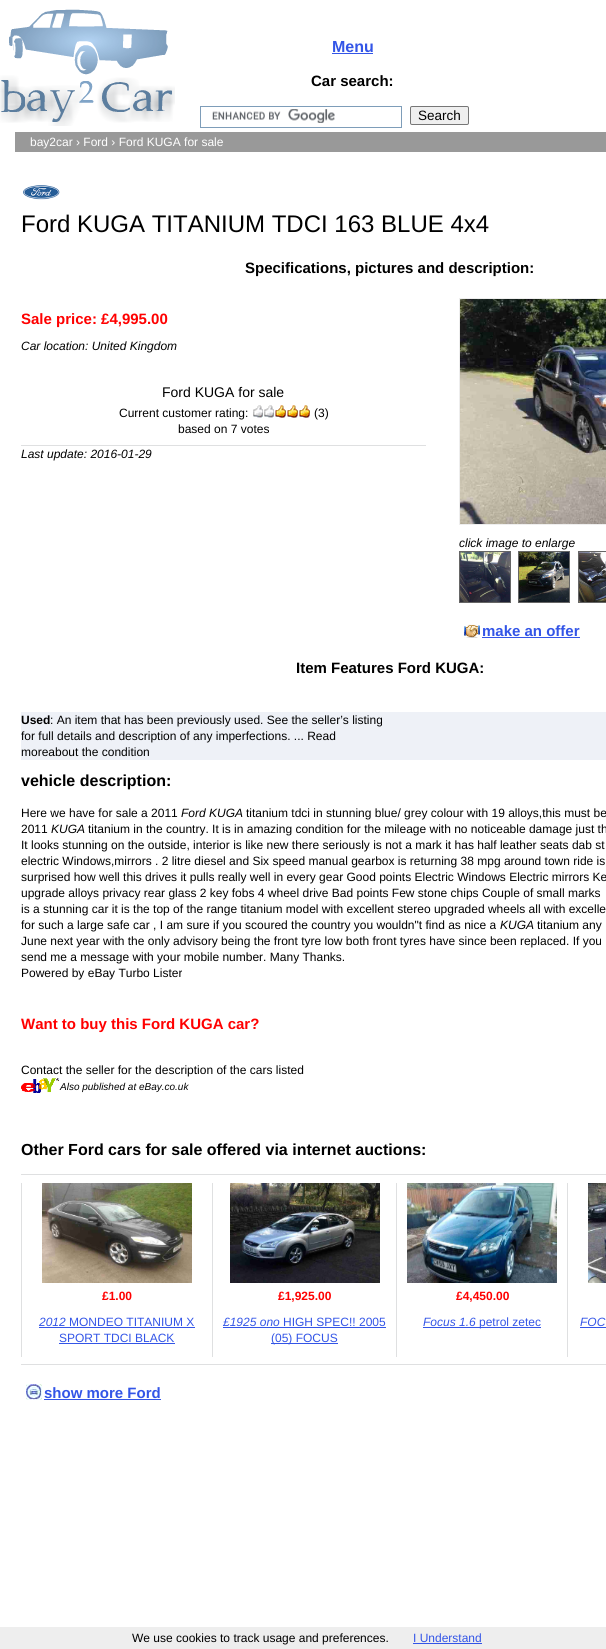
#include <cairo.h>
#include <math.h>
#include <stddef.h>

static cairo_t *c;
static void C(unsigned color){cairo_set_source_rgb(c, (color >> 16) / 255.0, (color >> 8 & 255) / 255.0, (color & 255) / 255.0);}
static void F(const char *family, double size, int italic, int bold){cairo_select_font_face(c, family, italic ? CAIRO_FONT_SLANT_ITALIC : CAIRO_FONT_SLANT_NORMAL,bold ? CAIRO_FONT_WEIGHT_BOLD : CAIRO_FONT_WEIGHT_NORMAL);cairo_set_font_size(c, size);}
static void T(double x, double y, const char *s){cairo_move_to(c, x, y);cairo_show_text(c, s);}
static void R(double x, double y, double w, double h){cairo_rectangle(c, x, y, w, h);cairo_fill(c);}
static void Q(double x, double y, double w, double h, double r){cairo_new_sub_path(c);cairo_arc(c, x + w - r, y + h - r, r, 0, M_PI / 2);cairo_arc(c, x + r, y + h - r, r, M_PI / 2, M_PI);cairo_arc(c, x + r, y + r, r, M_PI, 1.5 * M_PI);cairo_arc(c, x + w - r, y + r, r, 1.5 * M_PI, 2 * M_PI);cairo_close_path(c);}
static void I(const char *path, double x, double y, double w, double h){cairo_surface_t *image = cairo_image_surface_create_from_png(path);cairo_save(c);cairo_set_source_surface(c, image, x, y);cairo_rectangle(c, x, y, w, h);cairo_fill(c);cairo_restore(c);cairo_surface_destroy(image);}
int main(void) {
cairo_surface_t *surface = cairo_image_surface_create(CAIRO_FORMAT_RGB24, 606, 1649);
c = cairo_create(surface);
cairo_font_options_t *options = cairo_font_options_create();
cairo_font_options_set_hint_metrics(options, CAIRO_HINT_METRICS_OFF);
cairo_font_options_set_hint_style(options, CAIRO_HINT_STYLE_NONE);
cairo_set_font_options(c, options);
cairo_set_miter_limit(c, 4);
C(0xffffff);
cairo_paint(c);
I("1.png",0,9,175,117);
F("Liberation Sans",16,0,1);
C(0x3355e7);
T(332,52,"Menu");
R(332,53,41,1);
F("Liberation Sans",15,0,1);
C(0x000000);
T(311,86,"Car search:");
cairo_rectangle(c,200.5,106.5,201,21);
C(0x7e9db9);
cairo_set_line_width(c,1);
cairo_stroke(c);
I("2.png",212,109,123,14);
C(0xefefef);
Q(410.5,106.5,58,18,1.5);
cairo_fill_preserve(c);
C(0x767676);
cairo_stroke(c);
F("Liberation Sans",13.5,0,0);
C(0x000000);
T(418,120,"Search");
C(0x999999);
R(15,132,591,20);
F("Liberation Sans",12,0,0);
C(0xffffff);
T(30,146,"bay2car › Ford › Ford KUGA for sale");
I("3.png",23,185,37,15);
F("Liberation Sans",24,0,0);
C(0x000000);
T(21,232,"Ford KUGA TITANIUM TDCI 163 BLUE 4x4");
F("Liberation Sans",15,0,1);
T(245,273,"Specifications, pictures and description:");
C(0xff0000);
T(21,324,"Sale price: £4,995.00");
F("Liberation Sans",12,1,0);
C(0x000000);
T(21,350,"Car location: United Kingdom");
C(0xdfe0e1);
R(21,445,405,1);
F("Liberation Sans",14,0,0);
C(0x000000);
T(162,397,"Ford KUGA for sale");
F("Liberation Sans",12,0,0);
T(119,417,"Current customer rating:");
I("4.png",253,405,57,13);
T(314,417,"(3)");
T(178,433,"based on 7 votes");
F("Liberation Sans",12,1,0);
T(21,458,"Last update: 2016-01-29");
cairo_rectangle(c,459.5,298.5,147,226);
C(0xeeeeee);
cairo_stroke(c);
I("5.png",460,299,146,225);
C(0x000000);
T(459,547,"click image to enlarge");
cairo_rectangle(c,459.5,551.5,51,51);
C(0x666666);
cairo_stroke(c);
I("6.png",460,552,50,50);
cairo_rectangle(c,518.5,551.5,51,51);
cairo_stroke(c);
I("7.png",519,552,50,50);
cairo_rectangle(c,578.5,551.5,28,51);
cairo_stroke(c);
I("8.png",579,552,27,50);
I("9.png",464,624,16,14);
F("Liberation Sans",15,0,1);
C(0x3355e7);
T(482,636,"make an offer");
R(482,637,98,1);
C(0x000000);
T(296,673,"Item Features Ford KUGA:");
C(0xeef1f7);
R(21,712,585,48);
F("Liberation Sans",12,0,1);
C(0x000000);
T(21,724,"Used");
F("Liberation Sans",12,0,0);
T(50,724,": An item that has been previously used. See the seller’s listing");
T(21,740,"for full details and description of any imperfections. ... Read");
T(21,756,"moreabout the condition");
F("Liberation Sans",16,0,1);
T(21,786,"vehicle description:");
F("Liberation Sans",12,0,0);
T(21,817,"Here we have for sale a 2011");
F("Liberation Sans",12,1,0);
T(181,817,"Ford KUGA");
F("Liberation Sans",12,0,0);
T(246,817,"titanium tdci in stunning blue/ grey colour with 19 alloys,this must be");
T(21,833,"2011");
F("Liberation Sans",12,1,0);
T(51,833,"KUGA");
F("Liberation Sans",12,0,0);
T(88,833,"titanium in the country. It is in amazing condition for the mileage with no noticeable damage just th");
T(21,849,"It looks stunning on the outside, interior is like new there seriously is not a mark it has half leather seats dab st");
T(21,865,"electric Windows,mirrors . 2 litre diesel and Six speed manual gearbox is returning 38 mpg around town ride is");
T(21,881,"surprised how well this drives it pulls really well in every gear Good points Electric Windows Electric mirrors Ke");
T(21,897,"upgrade alloys privacy rear glass 2 key fobs 4 wheel drive Bad points Few stone chips Couple of small marks");
T(21,913,"is a stunning car it is the top of the range titanium model with excellent stereo upgraded wheels all with excelle");
T(21,929,"for such a large safe car , I am sure if you scoured the country you wouldn\"t find as nice a");
F("Liberation Sans",12,1,0);
T(500,929,"KUGA");
F("Liberation Sans",12,0,0);
T(537,929,"titanium any");
T(21,945,"June next year with the only advisory being the front tyre low both front tyres have since been replaced. If you");
T(21,961,"send me a message with your mobile number. Many Thanks.");
T(21,977,"Powered by eBay Turbo Lister");
F("Liberation Sans",15,0,1);
C(0xff0000);
T(21,1029,"Want to buy this Ford KUGA car?");
F("Liberation Sans",12,0,0);
C(0x000000);
T(21,1074,"Contact the seller for the description of the cars listed");
I("10.png",21,1078,38,15);
F("Liberation Sans",10,1,0);
T(60,1090,"Also published at eBay.co.uk");
F("Liberation Sans",16,0,1);
T(21,1155,"Other Ford cars for sale offered via internet auctions:");
C(0xdfe0e1);
R(21,1174,585,1);
R(21,1364,585,1);
R(212,1183,1,174);
R(21,1183,1,174);
I("11.png",42,1183,150,100);
F("Liberation Sans",12,0,1);
C(0xff0000);
T(102,1300,"£1.00");
F("Liberation Sans",12,1,0);
C(0x3355e7);
T(39,1326,"2012");
R(39,1327,156,1);
F("Liberation Sans",12,0,0);
T(69,1326,"MONDEO TITANIUM X");
T(59,1342,"SPORT TDCI BLACK");
R(59,1343,116,1);
C(0xdfe0e1);
R(396,1183,1,174);
I("12.png",230,1183,150,100);
F("Liberation Sans",12,0,1);
C(0xff0000);
T(278,1300,"£1,925.00");
F("Liberation Sans",12,1,0);
C(0x3355e7);
T(223,1326,"£1925 ono");
R(223,1327,163,1);
F("Liberation Sans",12,0,0);
T(283,1326,"HIGH SPEC!! 2005");
R(271,1343,67,1);
T(271,1342,"(05) FOCUS");
C(0xdfe0e1);
R(567,1183,1,174);
I("13.png",407,1183,150,100);
F("Liberation Sans",12,0,1);
C(0xff0000);
T(456,1300,"£4,450.00");
F("Liberation Sans",12,1,0);
C(0x3355e7);
T(423,1326,"Focus 1.6");
R(423,1327,118,1);
F("Liberation Sans",12,0,0);
T(479,1326,"petrol zetec");
I("14.png",588,1183,18,100);
F("Liberation Sans",12,1,0);
T(580,1326,"FOC");
R(580,1327,26,1);
I("15.png",26,1384,16,16);
F("Liberation Sans",15,0,1);
T(44,1398,"show more Ford");
R(44,1399,117,1);
C(0xeeeeee);
R(0,1627,606,22);
F("Liberation Sans",12,0,0);
C(0x000000);
T(132,1642,"We use cookies to track usage and preferences.");
C(0x3355e7);
T(413,1642,"I Understand");
R(413,1643,69,1);
cairo_surface_write_to_png(surface, "o.png");
cairo_font_options_destroy(options);
cairo_destroy(c);
cairo_surface_destroy(surface);
return 0;
}
